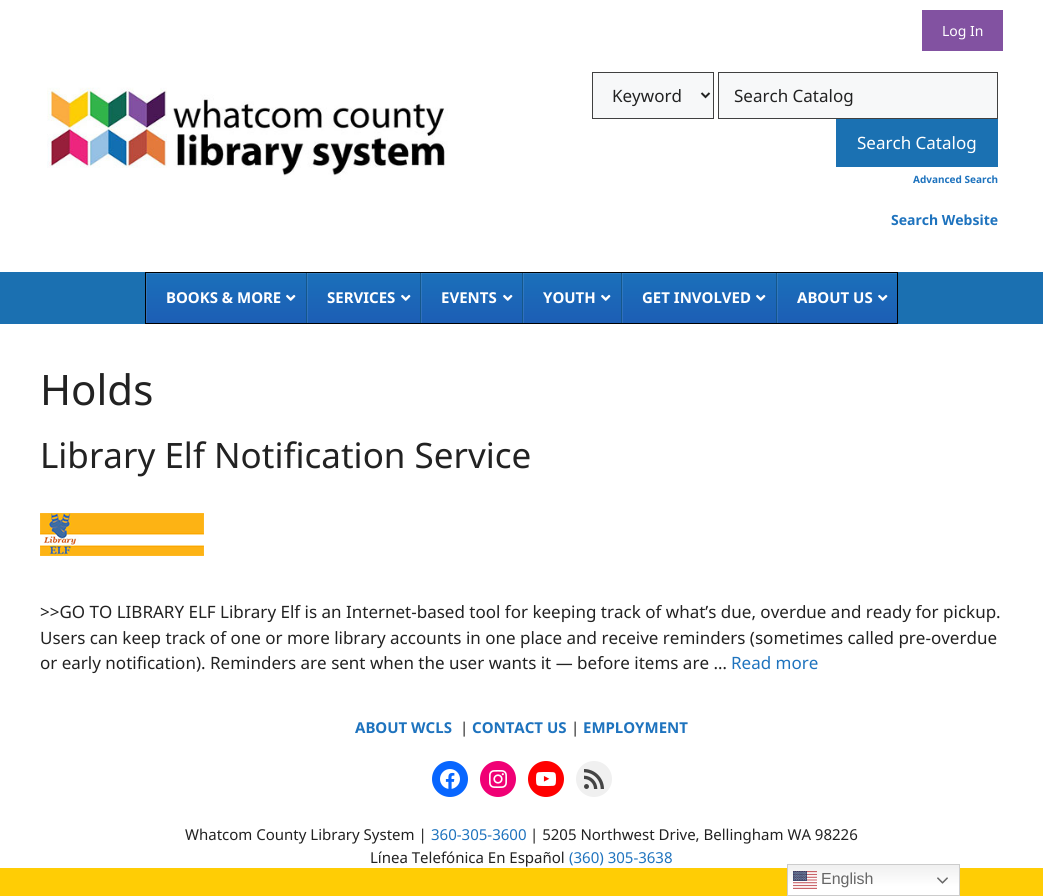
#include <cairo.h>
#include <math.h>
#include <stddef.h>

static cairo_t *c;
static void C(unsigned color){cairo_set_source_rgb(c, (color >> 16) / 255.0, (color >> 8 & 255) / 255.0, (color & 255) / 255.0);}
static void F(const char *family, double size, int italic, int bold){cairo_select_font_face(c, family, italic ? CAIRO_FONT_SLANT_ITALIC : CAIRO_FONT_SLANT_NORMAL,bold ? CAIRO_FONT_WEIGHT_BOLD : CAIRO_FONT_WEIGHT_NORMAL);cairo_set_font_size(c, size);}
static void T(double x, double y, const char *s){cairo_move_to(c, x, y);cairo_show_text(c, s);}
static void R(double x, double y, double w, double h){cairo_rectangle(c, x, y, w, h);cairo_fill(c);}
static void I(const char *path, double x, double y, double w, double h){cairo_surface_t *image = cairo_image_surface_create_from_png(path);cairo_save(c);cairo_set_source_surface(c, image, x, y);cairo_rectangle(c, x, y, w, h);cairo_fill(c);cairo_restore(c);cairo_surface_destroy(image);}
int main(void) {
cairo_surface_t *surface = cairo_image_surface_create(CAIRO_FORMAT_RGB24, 1043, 896);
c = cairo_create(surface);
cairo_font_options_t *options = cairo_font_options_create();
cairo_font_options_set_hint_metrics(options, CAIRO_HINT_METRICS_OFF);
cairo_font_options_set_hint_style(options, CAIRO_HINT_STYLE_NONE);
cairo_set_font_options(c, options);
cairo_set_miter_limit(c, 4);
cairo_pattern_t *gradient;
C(0xffffff);
cairo_paint(c);
I("1.png",47,87,401,93);
C(0x8252a1);
R(922,10,81,41);
F("Noto Sans",14,0,0);
C(0xffffff);
T(942,36,"Log In");
C(0xf7f8f9);
cairo_rectangle(c,592.5,72.5,121,46);
cairo_fill_preserve(c);
C(0x404040);
cairo_set_line_width(c,1);
cairo_stroke(c);
cairo_new_path(c);
cairo_move_to(c,701.5,93);
cairo_line_to(c,705.5,97);
cairo_line_to(c,709.5,93);
C(0x222222);
cairo_set_line_width(c,2);
cairo_stroke(c);
F("Noto Sans",17,0,0);
T(612,102,"Keyword");
C(0xf7f8f9);
cairo_rectangle(c,718.5,72.5,279,46);
cairo_fill_preserve(c);
C(0x404040);
cairo_set_line_width(c,1);
cairo_stroke(c);
C(0x222222);
T(734,102,"Search Catalog");
C(0x1b71b2);
R(836,119,162,48);
C(0xffffff);
T(857,149,"Search Catalog");
F("Noto Sans",10,0,1);
C(0x1e73be);
T(913,183,"Advanced Search");
F("Noto Sans",14,0,1);
T(891,225,"Search Website");
C(0x1b70b1);
R(0,272,1043,52);
gradient = cairo_pattern_create_linear(522,273,522,323);
cairo_pattern_add_color_stop_rgba(gradient,0,0.106,0.439,0.729,1);
cairo_pattern_add_color_stop_rgba(gradient,1,0.11,0.369,0.71,1);
cairo_set_source(c,gradient);
cairo_pattern_destroy(gradient);
R(146,273,751,50);
cairo_save(c);
cairo_rectangle(c,146,273,751,50);
cairo_clip(c);
cairo_set_source_rgba(c,1,1,1,0.1);
cairo_set_fill_rule(c,CAIRO_FILL_RULE_EVEN_ODD);
cairo_new_path(c);
cairo_move_to(c,47,174);
cairo_line_to(c,996,174);
cairo_line_to(c,996,422);
cairo_line_to(c,47,422);
cairo_close_path(c);
cairo_move_to(c,147,274);
cairo_line_to(c,898,274);
cairo_line_to(c,898,324);
cairo_line_to(c,147,324);
cairo_close_path(c);
cairo_fill(c);
cairo_restore(c);
cairo_rectangle(c,145.5,272.5,752,51);
C(0x000000);
cairo_stroke(c);
F("Noto Sans",15,0,1);
C(0xffffff);
T(166,303,"BOOKS & MORE");
I("2.png",286,294,10,7);
cairo_set_source_rgba(c,1,1,1,0.1);
R(307,273,1,50);
C(0x15578b);
R(306,273,1,50);
C(0xffffff);
T(327,303,"SERVICES");
I("2.png",401,294,10,7);
cairo_set_source_rgba(c,1,1,1,0.1);
R(421,273,1,50);
C(0x15578b);
R(420,273,1,50);
C(0xffffff);
T(441,303,"EVENTS");
I("2.png",503,294,10,7);
cairo_set_source_rgba(c,1,1,1,0.1);
R(523,273,1,50);
C(0x15578b);
R(522,273,1,50);
C(0xffffff);
T(543,303,"YOUTH");
I("2.png",601,294,10,7);
cairo_set_source_rgba(c,1,1,1,0.1);
R(622,273,1,50);
C(0x15578b);
R(621,273,1,50);
C(0xffffff);
T(642,303,"GET INVOLVED");
I("2.png",756,294,10,7);
cairo_set_source_rgba(c,1,1,1,0.1);
R(777,273,1,50);
C(0x15578b);
R(776,273,1,50);
C(0xffffff);
T(797,303,"ABOUT US");
I("2.png",878,294,10,7);
F("Noto Sans",42,0,0);
C(0x222222);
T(40,405,"Holds");
F("Noto Sans",35,0,0);
T(40,468,"Library Elf Notification Service");
I("3.png",40,513,164,43);
F("Noto Sans",17,0,0);
T(40,618,">>GO TO LIBRARY ELF Library Elf is an Internet-based tool for keeping track of what’s due, overdue and ready for pickup.");
T(40,644,"Users can keep track of one or more library accounts in one place and receive reminders (sometimes called pre-overdue");
T(40,669,"or early notification). Reminders are sent when the user wants it — before items are …");
C(0x1e73be);
T(731,669,"Read more");
F("Noto Sans",15,0,1);
T(355,733,"ABOUT WCLS");
F("Noto Sans",15,0,0);
C(0x222222);
T(460,733,"|");
F("Noto Sans",15,0,1);
C(0x1e73be);
T(472,733,"CONTACT US");
F("Noto Sans",15,0,0);
C(0x222222);
T(571,733,"|");
F("Noto Sans",15,0,1);
C(0x1e73be);
T(583,733,"EMPLOYMENT");
C(0x0866ff);
cairo_new_path(c);
cairo_arc(c,450,779,18,0,2 * M_PI);
cairo_fill(c);
I("4.png",440,769,20,20);
C(0xf00075);
cairo_arc(c,498,779,18,0,2 * M_PI);
cairo_fill(c);
I("5.png",489,770,18,18);
C(0xff0000);
cairo_arc(c,546,779,18,0,2 * M_PI);
cairo_fill(c);
I("6.png",536,772,20,14);
C(0xf0f0f0);
cairo_arc(c,594,779,18,0,2 * M_PI);
cairo_fill(c);
I("7.png",584,769,20,20);
F("Noto Sans",15,0,0);
C(0x222222);
T(185,840,"Whatcom County Library System |");
C(0x1e73be);
T(431,840,"360-305-3600");
C(0x222222);
T(530,840,"| 5205 Northwest Drive, Bellingham WA 98226");
T(370,863,"Línea Telefónica En Español");
C(0x1e73be);
T(569,863,"(360) 305-3638");
C(0xffcd05);
R(0,868,1043,28);
gradient = cairo_pattern_create_linear(874,864,874,896);
cairo_pattern_add_color_stop_rgba(gradient,0,0.937,0.937,0.937,1);
cairo_pattern_add_color_stop_rgba(gradient,.7,1,1,1,1);
cairo_set_source(c,gradient);
cairo_pattern_destroy(gradient);
R(788,865,171,30);
cairo_rectangle(c,787.5,864.5,172,31);
C(0xcccccc);
cairo_stroke(c);
I("8.png",793,871,24,18);
F("Liberation Sans",16,0,0);
C(0x666666);
T(821,884,"English");
I("9.png",937,877,11,7);
cairo_surface_write_to_png(surface, "o.png");
cairo_font_options_destroy(options);
cairo_destroy(c);
cairo_surface_destroy(surface);
return 0;
}
